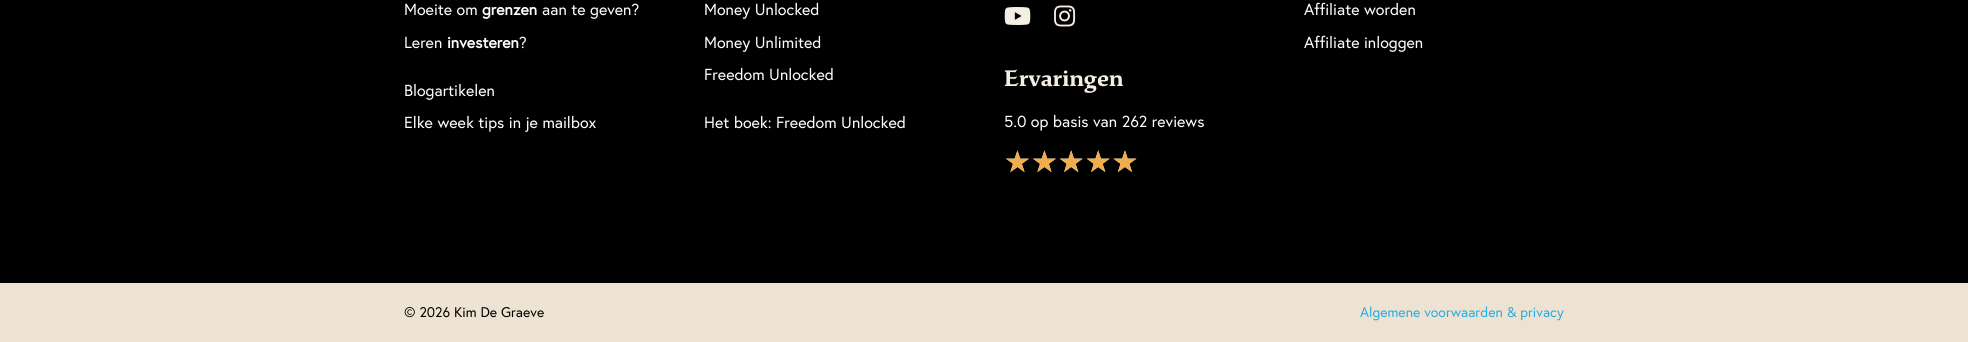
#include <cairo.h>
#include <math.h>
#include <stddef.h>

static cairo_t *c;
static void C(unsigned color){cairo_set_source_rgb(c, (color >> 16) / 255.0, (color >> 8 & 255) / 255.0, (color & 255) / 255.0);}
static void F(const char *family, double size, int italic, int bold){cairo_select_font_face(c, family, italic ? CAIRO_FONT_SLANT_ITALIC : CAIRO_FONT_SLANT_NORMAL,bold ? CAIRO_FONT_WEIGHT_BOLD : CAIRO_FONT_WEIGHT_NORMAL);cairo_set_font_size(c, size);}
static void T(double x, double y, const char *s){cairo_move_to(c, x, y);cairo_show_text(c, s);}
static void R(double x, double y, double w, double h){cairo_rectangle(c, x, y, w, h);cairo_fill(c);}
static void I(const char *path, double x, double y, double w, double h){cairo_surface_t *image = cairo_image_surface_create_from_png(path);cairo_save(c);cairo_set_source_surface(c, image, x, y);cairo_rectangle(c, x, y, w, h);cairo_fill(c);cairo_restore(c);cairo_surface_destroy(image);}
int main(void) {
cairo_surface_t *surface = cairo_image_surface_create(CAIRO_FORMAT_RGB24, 1968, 342);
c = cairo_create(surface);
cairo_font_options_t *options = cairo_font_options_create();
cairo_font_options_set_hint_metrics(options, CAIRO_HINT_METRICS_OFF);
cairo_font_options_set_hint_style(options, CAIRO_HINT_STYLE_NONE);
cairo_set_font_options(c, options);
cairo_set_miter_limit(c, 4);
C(0x000000);
cairo_paint(c);
F("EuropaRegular",16,0,0);
C(0xffffff);
T(404,15,"Moeite om");
F("EuropaRegular",16,0,1);
T(482,15,"grenzen");
F("EuropaRegular",16,0,0);
T(542,15,"aan te geven?");
T(404,48,"Leren");
F("EuropaRegular",16,0,1);
T(447,48,"investeren");
F("EuropaRegular",16,0,0);
T(519,48,"?");
T(404,96,"Blogartikelen");
T(404,128,"Elke week tips in je mailbox");
T(704,15,"Money Unlocked");
T(704,48,"Money Unlimited");
T(704,80,"Freedom Unlocked");
T(704,128,"Het boek: Freedom Unlocked");
I("1.png",1004,7,27,18);
I("2.png",1054,5,22,22);
F("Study",24,0,1);
C(0xf5eee4);
T(1004,86,"Ervaringen");
F("EuropaRegular",16,0,0);
C(0xffffff);
T(1004,127,"5.0 op basis van 262 reviews");
F("DejaVu Sans",30,0,0);
C(0xf5eee4);
T(1004,172,"☆☆☆☆☆");
C(0xf0ad4e);
T(1004,172,"★★★★★");
F("EuropaRegular",16,0,0);
C(0xffffff);
T(1304,15,"Affiliate worden");
T(1304,48,"Affiliate inloggen");
C(0xeee3d2);
R(0,283,1968,59);
F("EuropaRegular",14,0,0);
C(0x000000);
T(404,317,"© 2026 Kim De Graeve");
C(0x26ade4);
T(1360,317,"Algemene voorwaarden & privacy");
cairo_surface_write_to_png(surface, "o.png");
cairo_font_options_destroy(options);
cairo_destroy(c);
cairo_surface_destroy(surface);
return 0;
}
